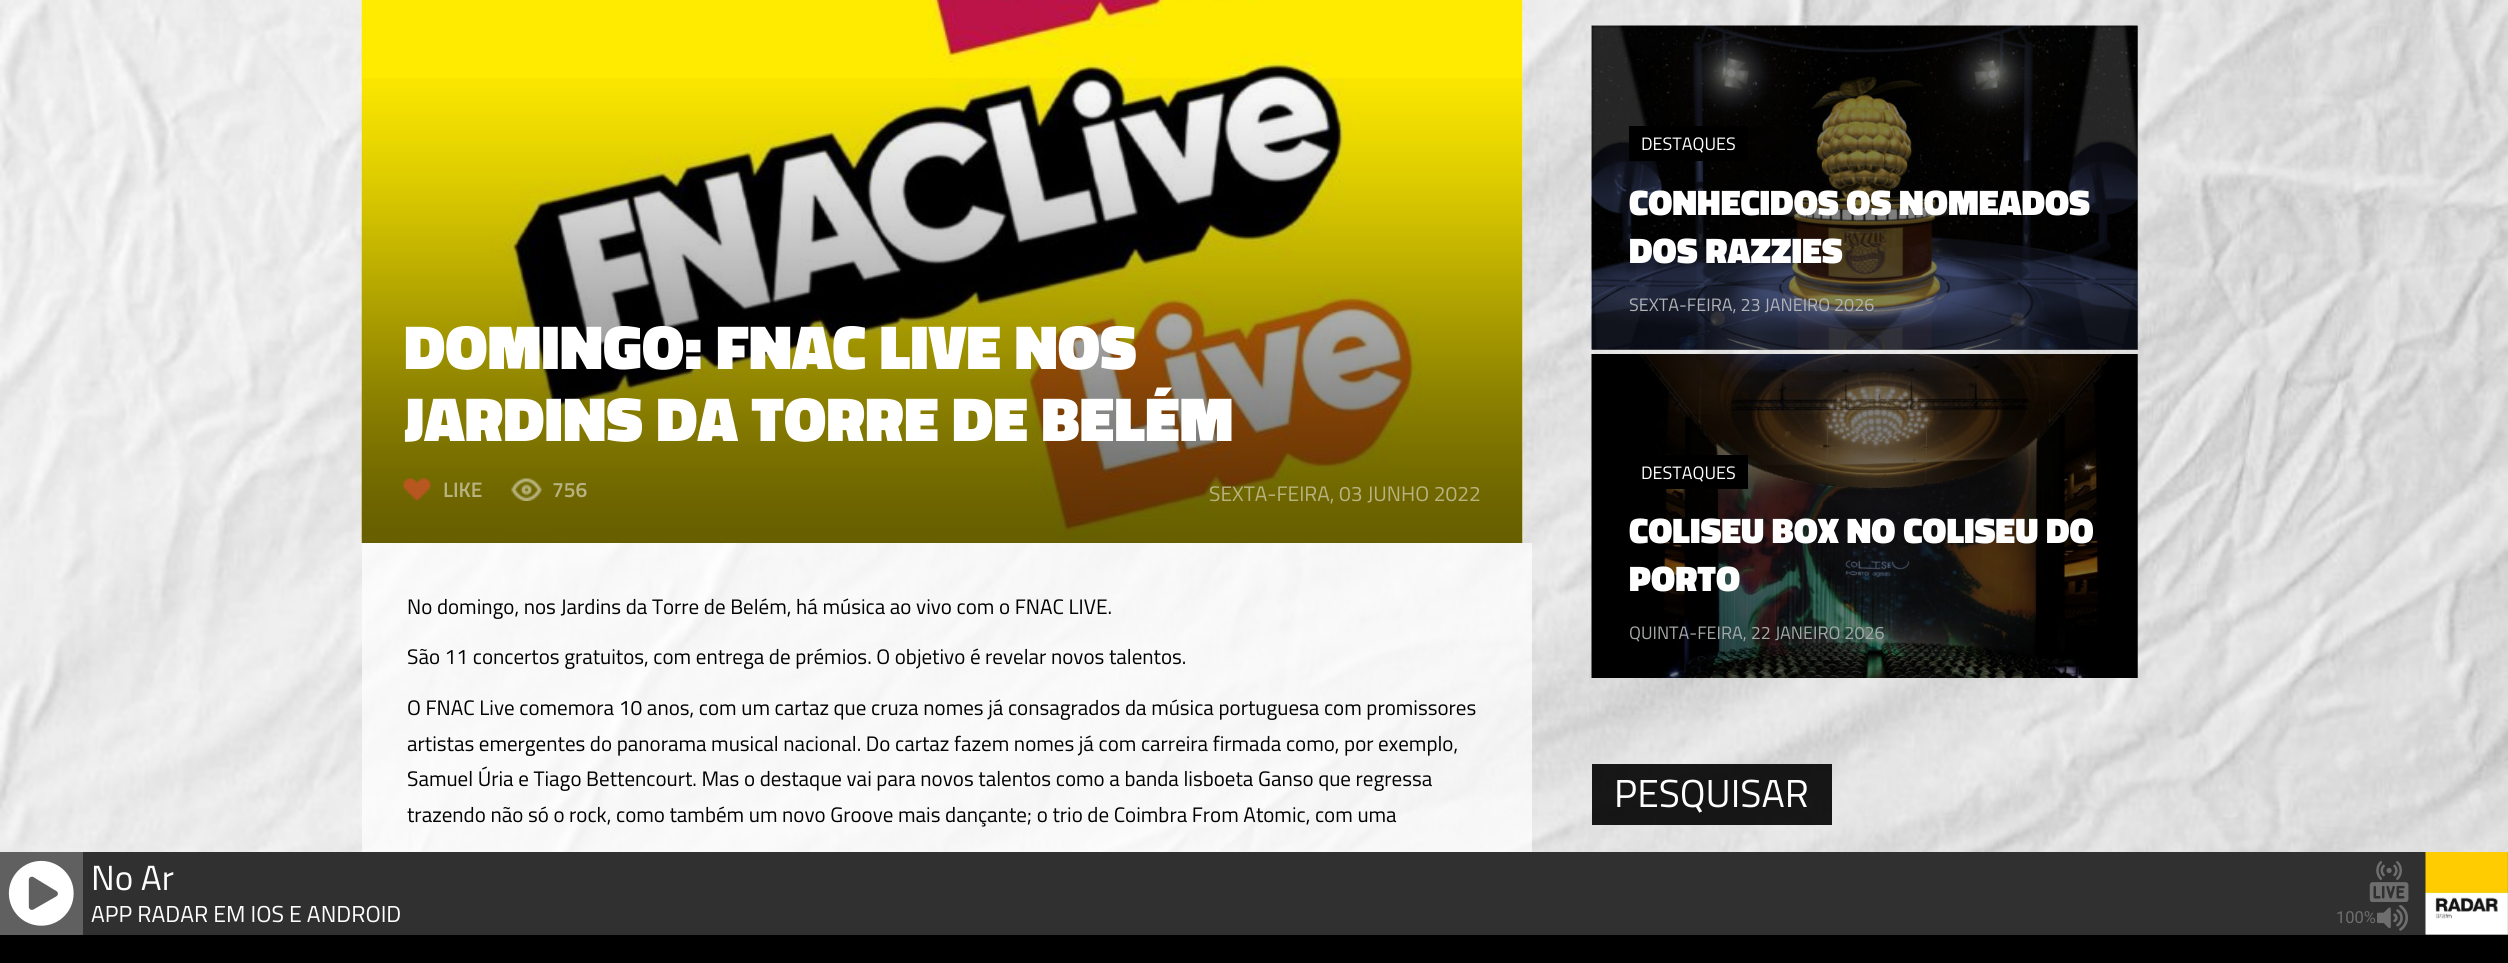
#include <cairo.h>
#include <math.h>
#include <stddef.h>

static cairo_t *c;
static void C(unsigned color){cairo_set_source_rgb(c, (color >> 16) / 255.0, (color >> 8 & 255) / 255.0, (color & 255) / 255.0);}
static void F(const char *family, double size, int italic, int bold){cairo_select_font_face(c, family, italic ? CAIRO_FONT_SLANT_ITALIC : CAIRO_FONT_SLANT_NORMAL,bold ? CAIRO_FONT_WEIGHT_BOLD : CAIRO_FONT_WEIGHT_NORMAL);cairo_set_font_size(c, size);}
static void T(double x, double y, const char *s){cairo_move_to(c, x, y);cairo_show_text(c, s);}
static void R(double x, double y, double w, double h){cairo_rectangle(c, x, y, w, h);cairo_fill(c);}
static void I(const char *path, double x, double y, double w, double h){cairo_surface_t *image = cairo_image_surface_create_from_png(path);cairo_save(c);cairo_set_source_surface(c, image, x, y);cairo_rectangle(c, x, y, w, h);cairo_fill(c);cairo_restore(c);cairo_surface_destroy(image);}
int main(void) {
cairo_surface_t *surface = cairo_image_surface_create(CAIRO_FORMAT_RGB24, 2508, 963);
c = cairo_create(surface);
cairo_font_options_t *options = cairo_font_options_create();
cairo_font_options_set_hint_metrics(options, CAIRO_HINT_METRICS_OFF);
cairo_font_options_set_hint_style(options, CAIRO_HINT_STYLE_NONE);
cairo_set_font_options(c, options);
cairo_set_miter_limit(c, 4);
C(0xffffff);
cairo_paint(c);
I("1.png",0,0,2508,852);
cairo_set_source_rgba(c,1,1,1,0.2);
R(1522,0,1,543);
I("2.png",361,0,1162,543);
I("3.png",361,78,1162,465);
F("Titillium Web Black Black",63,0,0);
C(0xffffff);
T(404,369,"DOMINGO: FNAC LIVE NOS");
T(404,441,"JARDINS DA TORRE DE BELÉM");
I("4.png",403,478,28,23);
F("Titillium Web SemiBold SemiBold",21,0,0);
C(0xb8b380);
T(443,497,"LIKE");
I("5.png",511,478,31,23);
T(552,497,"756");
F("Titillium Web",21,0,0);
T(1209,501,"SEXTA-FEIRA, 03 JUNHO 2022");
cairo_set_source_rgba(c,1,1,1,0.7);
R(362,543,1170,309);
C(0x000000);
T(407,614,"No domingo, nos Jardins da Torre de Belém, há música ao vivo com o FNAC LIVE.");
T(407,664,"São 11 concertos gratuitos, com entrega de prémios. O objetivo é revelar novos talentos.");
T(407,715,"O FNAC Live comemora 10 anos, com um cartaz que cruza nomes já consagrados da música portuguesa com promissores");
T(407,751,"artistas emergentes do panorama musical nacional. Do cartaz fazem nomes já com carreira firmada como, por exemplo,");
T(407,786,"Samuel Úria e Tiago Bettencourt. Mas o destaque vai para novos talentos como a banda lisboeta Ganso que regressa");
T(407,822,"trazendo não só o rock, como também um novo Groove mais dançante; o trio de Coimbra From Atomic, com uma");
cairo_set_source_rgba(c,1,1,1,0.2);
R(1592,26,546,652);
I("6.png",1591,25,547,325);
cairo_set_source_rgba(c,0,0,0,0.5);
R(1592,26,546,324);
C(0x000000);
R(1629,126,119,35);
F("Titillium Web",18,0,0);
C(0xffffff);
T(1641,150,"DESTAQUES");
F("Titillium Web Black Black",36,0,0);
T(1629,215,"CONHECIDOS OS NOMEADOS");
T(1629,263,"DOS RAZZIES");
F("Titillium Web",18,0,0);
C(0xb0b2b6);
T(1629,311,"SEXTA-FEIRA, 23 JANEIRO 2026");
I("7.png",1591,354,547,324);
cairo_set_source_rgba(c,0,0,0,0.5);
R(1640,354,498,324);
C(0x000000);
R(1656,455,92,34);
C(0xffffff);
T(1641,479,"DESTAQUES");
F("Titillium Web Black Black",36,0,0);
T(1629,543,"COLISEU BOX NO COLISEU DO");
T(1629,591,"PORTO");
F("Titillium Web",18,0,0);
C(0xa4a8a7);
T(1629,639,"QUINTA-FEIRA, 22 JANEIRO 2026");
cairo_set_source_rgba(c,0,0,0,0.9);
R(1592,764,240,61);
F("Titillium Web",39,0,0);
C(0xffffff);
T(1614,807,"PESQUISAR");
C(0x606060);
R(0,852,83,83);
I("8.png",8,860,66,66);
C(0x303030);
R(83,852,2343,83);
C(0x707070);
R(2426,852,82,83);
I("9.png",2425,852,83,83);
F("Titillium Web",35,0,0);
C(0xffffff);
T(91,890,"No Ar");
I("10.png",2369,861,40,41);
F("Titillium Web",23.1,0,0);
T(91,922,"APP RADAR EM IOS E ANDROID");
F("Roboto",16.5,0,0);
C(0x6e6e6e);
T(2336,923,"100%");
I("11.png",2377,905,31,26);
C(0x000000);
R(0,935,2508,28);
cairo_surface_write_to_png(surface, "o.png");
cairo_font_options_destroy(options);
cairo_destroy(c);
cairo_surface_destroy(surface);
return 0;
}
